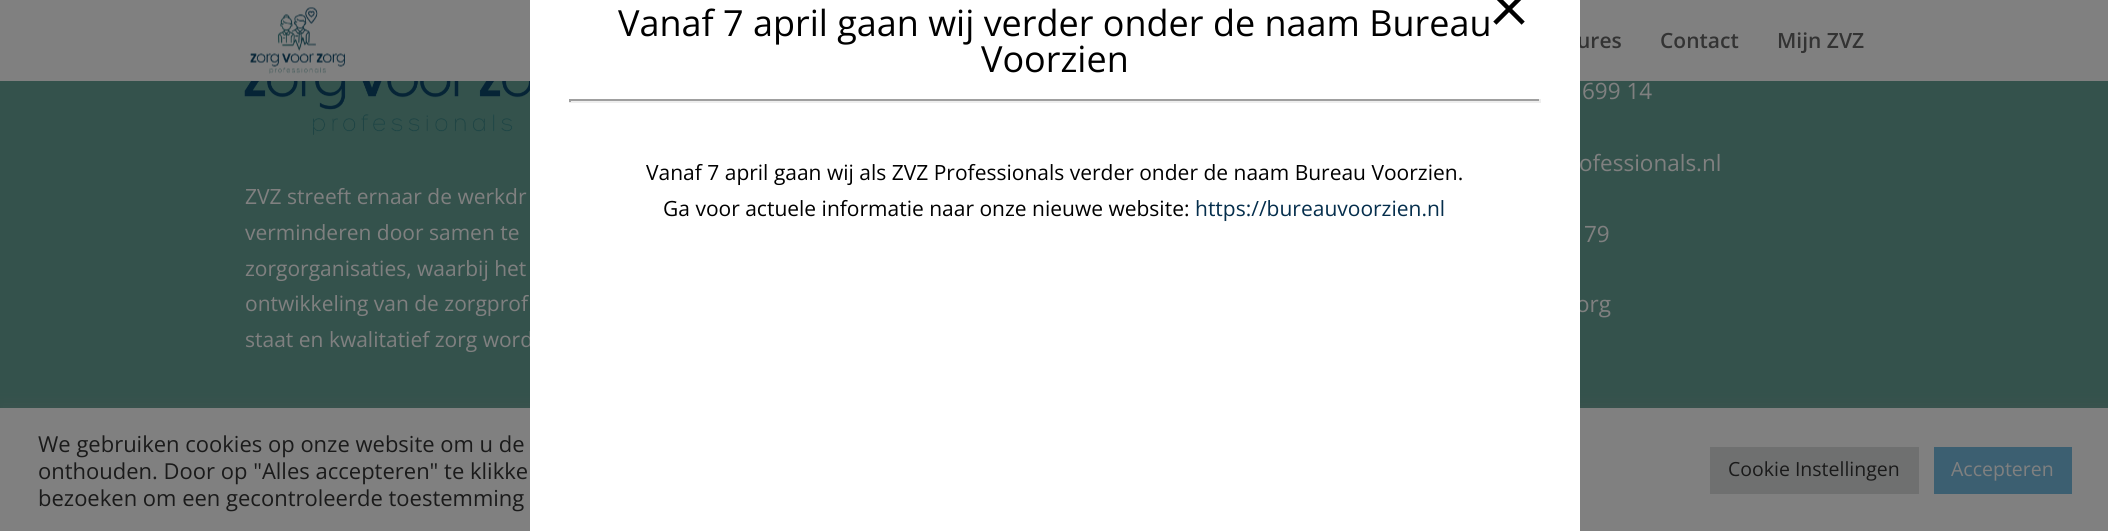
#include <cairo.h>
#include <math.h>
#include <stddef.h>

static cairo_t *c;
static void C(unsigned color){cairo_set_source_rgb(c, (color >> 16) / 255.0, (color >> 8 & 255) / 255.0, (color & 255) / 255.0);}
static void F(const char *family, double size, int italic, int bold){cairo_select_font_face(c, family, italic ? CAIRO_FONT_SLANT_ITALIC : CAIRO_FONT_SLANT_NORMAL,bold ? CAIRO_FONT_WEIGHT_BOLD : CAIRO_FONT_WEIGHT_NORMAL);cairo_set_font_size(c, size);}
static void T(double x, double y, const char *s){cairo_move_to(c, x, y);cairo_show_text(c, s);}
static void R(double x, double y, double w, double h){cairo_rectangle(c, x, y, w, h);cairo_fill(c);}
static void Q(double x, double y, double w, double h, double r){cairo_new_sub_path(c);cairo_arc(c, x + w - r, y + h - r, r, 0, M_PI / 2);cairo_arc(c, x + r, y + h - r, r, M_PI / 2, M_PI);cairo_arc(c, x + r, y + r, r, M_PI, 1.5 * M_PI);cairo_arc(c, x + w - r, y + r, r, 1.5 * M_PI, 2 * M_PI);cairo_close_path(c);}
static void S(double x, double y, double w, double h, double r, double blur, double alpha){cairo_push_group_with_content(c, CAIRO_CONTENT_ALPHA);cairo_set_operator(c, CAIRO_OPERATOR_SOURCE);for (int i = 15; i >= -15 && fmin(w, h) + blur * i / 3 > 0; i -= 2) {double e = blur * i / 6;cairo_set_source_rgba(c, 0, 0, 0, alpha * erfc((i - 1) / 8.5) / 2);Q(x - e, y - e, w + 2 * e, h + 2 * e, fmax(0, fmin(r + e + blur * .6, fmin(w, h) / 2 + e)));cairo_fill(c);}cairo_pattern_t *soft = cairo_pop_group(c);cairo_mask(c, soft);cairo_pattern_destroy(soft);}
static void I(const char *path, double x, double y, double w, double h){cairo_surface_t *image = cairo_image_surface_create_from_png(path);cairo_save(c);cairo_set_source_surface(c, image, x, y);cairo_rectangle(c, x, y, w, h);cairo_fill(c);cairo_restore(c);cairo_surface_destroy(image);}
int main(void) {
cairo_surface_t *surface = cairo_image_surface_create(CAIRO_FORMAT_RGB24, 2108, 531);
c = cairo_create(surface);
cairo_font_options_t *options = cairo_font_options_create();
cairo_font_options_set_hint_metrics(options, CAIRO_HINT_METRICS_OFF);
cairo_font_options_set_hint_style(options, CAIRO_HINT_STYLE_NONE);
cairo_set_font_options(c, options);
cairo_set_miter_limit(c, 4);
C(0x34524c);
cairo_paint(c);
C(0x808080);
R(0,0,2108,81);
F("Open Sans SemiBold",21,0,0);
C(0x333333);
T(1577,48,"ures");
F("Open Sans",21,0,0);
C(0x808080);
T(245,347,"staat en kwalitatief zorg word");
F("Open Sans",22.5,0,0);
T(1576,312,"org");
C(0x565656);
S(0,407,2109,123,0,7.5,.3);
C(0x808080);
R(0,408,2108,123);
C(0xffffff);
R(530,0,1050,531);
F("Open Sans",36,0,0);
C(0x000000);
T(618,36,"Vanaf 7 april gaan wij verder onder de naam Bureau");
T(981,72,"Voorzien");
I("1.png",1493,0,32,25);
C(0x9f9f9f);
R(569,99,972,2);
C(0xeeeeee);
R(1539,99,2,3);
R(569,101,972,2);
C(0x9f9f9f);
R(569,99,2,3);
F("Open Sans",21,0,0);
C(0x000000);
T(646,180,"Vanaf 7 april gaan wij als ZVZ Professionals verder onder de naam Bureau Voorzien.");
T(663,216,"Ga voor actuele informatie naar onze nieuwe website:");
C(0x052e4c);
T(1195,216,"https://bureauvoorzien.nl");
I("2.png",250,7,95,67);
F("Open Sans SemiBold",21,0,0);
C(0x333333);
T(1660,48,"Contact");
T(1777,48,"Mijn ZVZ");
I("3.png",244,81,286,54);
F("Open Sans",21,0,0);
C(0x808080);
T(245,204,"ZVZ streeft ernaar de werkdr");
T(245,240,"verminderen door samen te");
T(245,276,"zorgorganisaties, waarbij het");
T(245,311,"ontwikkeling van de zorgprof");
F("Open Sans",22.5,0,0);
T(1582,99,"699 14");
T(1579,171,"ofessionals.nl");
T(1584,242,"79");
F("Open Sans",22,0,0);
C(0x1a1a1a);
T(38,452,"We gebruiken cookies op onze website om u de");
T(38,479,"onthouden. Door op \"Alles accepteren\" te klikke");
T(38,506,"bezoeken om een gecontroleerde toestemming");
C(0x6f7070);
R(1710,447,209,47);
F("Open Sans",19.5,0,0);
C(0x1a1a1a);
T(1728,476,"Cookie Instellingen");
C(0x3c5f71);
R(1934,447,138,47);
C(0x808080);
T(1951,476,"Accepteren");
cairo_surface_write_to_png(surface, "o.png");
cairo_font_options_destroy(options);
cairo_destroy(c);
cairo_surface_destroy(surface);
return 0;
}
